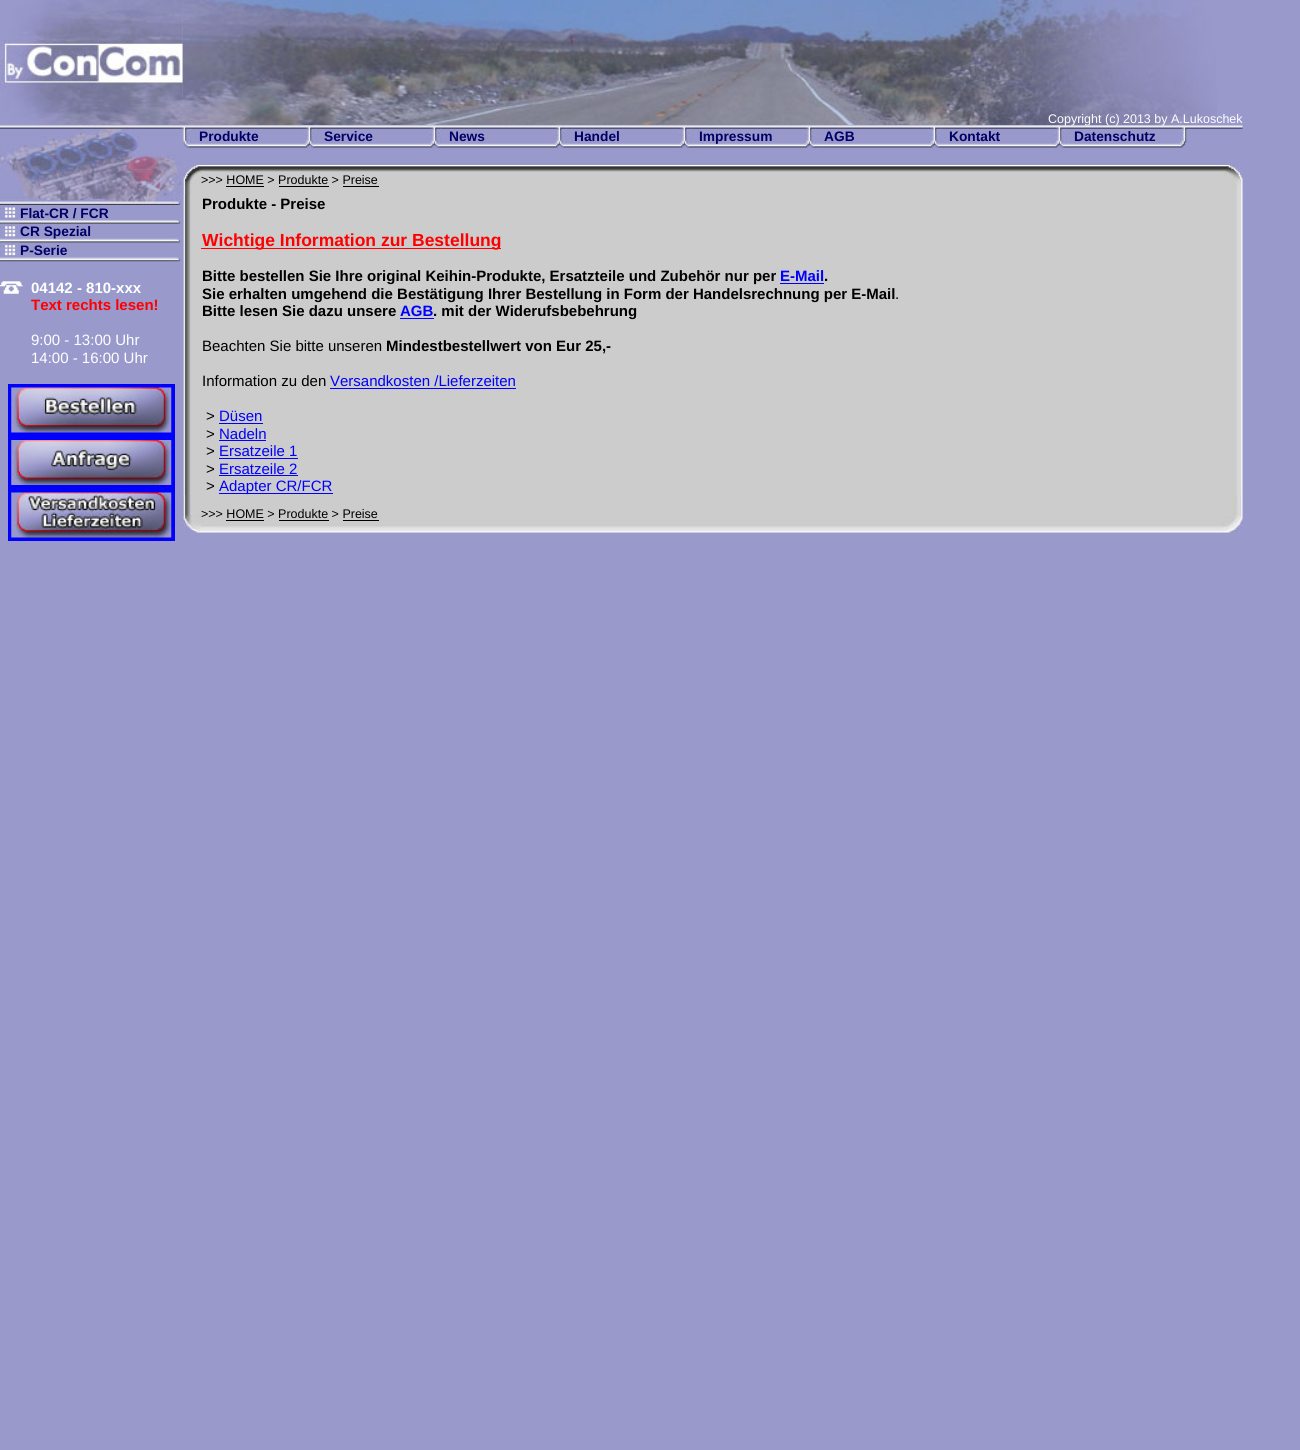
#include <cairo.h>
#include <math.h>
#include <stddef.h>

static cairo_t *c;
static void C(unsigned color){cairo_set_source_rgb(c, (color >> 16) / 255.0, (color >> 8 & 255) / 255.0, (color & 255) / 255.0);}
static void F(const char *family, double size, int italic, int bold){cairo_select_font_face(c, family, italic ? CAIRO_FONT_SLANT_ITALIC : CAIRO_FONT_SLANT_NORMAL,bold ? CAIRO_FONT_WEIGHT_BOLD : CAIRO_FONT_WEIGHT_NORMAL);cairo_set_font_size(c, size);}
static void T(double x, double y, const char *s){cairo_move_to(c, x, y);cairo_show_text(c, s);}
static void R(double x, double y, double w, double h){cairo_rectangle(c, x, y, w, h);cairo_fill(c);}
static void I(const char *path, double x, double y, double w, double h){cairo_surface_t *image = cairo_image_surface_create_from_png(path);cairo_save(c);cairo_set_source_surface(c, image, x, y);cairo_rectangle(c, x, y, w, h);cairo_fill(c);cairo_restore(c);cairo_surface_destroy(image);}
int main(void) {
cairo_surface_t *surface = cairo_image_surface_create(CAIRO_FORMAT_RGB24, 1300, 1450);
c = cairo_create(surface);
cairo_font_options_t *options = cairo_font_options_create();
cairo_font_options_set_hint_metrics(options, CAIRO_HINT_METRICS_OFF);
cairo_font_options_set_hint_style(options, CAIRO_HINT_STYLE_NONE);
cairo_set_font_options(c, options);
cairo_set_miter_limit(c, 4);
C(0x9999cc);
cairo_paint(c);
I("13.png",182,0,1035,125);
I("1.png",0,0,183,125);
I("14.png",182,125,1061,10);
I("15.png",182,125,126,23);
I("19.png",182,165,1061,30);
I("2.png",0,125,183,80);
I("3.png",0,205,20,15);
F("Liberation Sans",13.75,0,1);
C(0x000066);
T(20,218,"Flat-CR / FCR");
I("4.png",0,220,181,4);
I("5.png",0,223,20,16);
T(20,236,"CR Spezial");
I("6.png",0,238,181,5);
I("7.png",0,242,20,16);
T(20,255,"P-Serie");
I("8.png",0,257,181,5);
I("9.png",0,281,23,13);
F("Liberation Sans",15,0,1);
C(0xffffff);
T(31,293,"04142 - 810-xxx");
C(0xff0000);
T(31,310,"Text rechts lesen!");
F("Liberation Sans",15,0,0);
C(0xffffff);
T(31,345,"9:00 - 13:00 Uhr");
T(31,363,"14:00 - 16:00 Uhr");
cairo_rectangle(c,10,386,163,48);
C(0x0000ff);
cairo_set_line_width(c,4);
cairo_stroke(c);
I("10.png",11,387,161,46);
cairo_rectangle(c,10,438,163,49);
cairo_stroke(c);
I("11.png",11,440,161,45);
cairo_rectangle(c,10,491,163,48);
cairo_stroke(c);
I("12.png",11,492,161,46);
I("16.png",307,125,126,23);
I("16.png",432,125,126,23);
I("17.png",557,125,126,23);
I("16.png",682,125,126,23);
I("17.png",807,125,126,23);
I("17.png",932,125,126,23);
I("18.png",1057,125,130,23);
F("Liberation Sans",12.5,0,0);
C(0xffffff);
T(1048,123,"Copyright (c) 2013 by A.Lukoschek");
F("Liberation Sans",13.75,0,1);
C(0x000066);
T(199,141,"Produkte");
T(324,141,"Service");
T(449,141,"News");
T(574,141,"Handel");
T(699,141,"Impressum");
T(824,141,"AGB");
T(949,141,"Kontakt");
T(1074,141,"Datenschutz");
F("Liberation Sans",12.5,0,0);
C(0x000000);
T(201,184,">>> HOME > Produkte > Preise");
R(226,186,38,1);
R(279,186,50,1);
R(343,186,36,1);
I("20.png",183,195,1060,300);
F("Liberation Sans",15,0,1);
T(202,209,"Produkte - Preise");
C(0xff0000);
R(201,248,300,1);
F("Liberation Sans",17.5,0,1);
T(202,246,"Wichtige Information zur Bestellung");
F("Liberation Sans",15,0,1);
C(0x000000);
T(202,281,"Bitte bestellen Sie Ihre original Keihin-Produkte, Ersatzteile und Zubehör nur per");
C(0x0000ff);
T(780,281,"E-Mail");
C(0x000000);
T(824,281,".");
C(0x0000ff);
R(780,283,44,1);
C(0x000000);
T(202,299,"Sie erhalten umgehend die Bestätigung Ihrer Bestellung in Form der Handelsrechnung per E-Mail");
F("Liberation Sans",15,0,0);
T(895,299,".");
F("Liberation Sans",15,0,1);
T(202,316,"Bitte lesen Sie dazu unsere");
C(0x0000ff);
T(400,316,"AGB");
C(0x000000);
T(433,316,". mit der Widerufsbebehrung");
C(0x0000ff);
R(400,318,34,1);
F("Liberation Sans",15,0,0);
C(0x000000);
T(202,351,"Beachten Sie bitte unseren");
F("Liberation Sans",15,0,1);
T(386,351,"Mindestbestellwert von Eur 25,-");
F("Liberation Sans",15,0,0);
T(202,386,"Information zu den");
C(0x0000ff);
T(330,386,"Versandkosten /Lieferzeiten");
R(330,388,186,1);
C(0x000000);
T(206,421,">");
C(0x0000ff);
T(219,421,"Düsen");
R(219,423,44,1);
C(0x000000);
T(206,439,">");
C(0x0000ff);
T(219,439,"Nadeln");
R(219,440,47,1);
C(0x000000);
T(206,456,">");
C(0x0000ff);
T(219,456,"Ersatzeile 1");
R(219,458,79,1);
C(0x000000);
T(206,474,">");
C(0x0000ff);
T(219,474,"Ersatzeile 2");
R(219,475,79,1);
C(0x000000);
T(206,491,">");
C(0x0000ff);
R(219,493,114,1);
T(219,491,"Adapter CR/FCR");
I("21.png",182,495,1061,38);
F("Liberation Sans",12.5,0,0);
C(0x000000);
T(201,518,">>> HOME > Produkte > Preise");
R(226,520,38,1);
R(279,520,50,1);
R(343,520,36,1);
cairo_surface_write_to_png(surface, "o.png");
cairo_font_options_destroy(options);
cairo_destroy(c);
cairo_surface_destroy(surface);
return 0;
}
